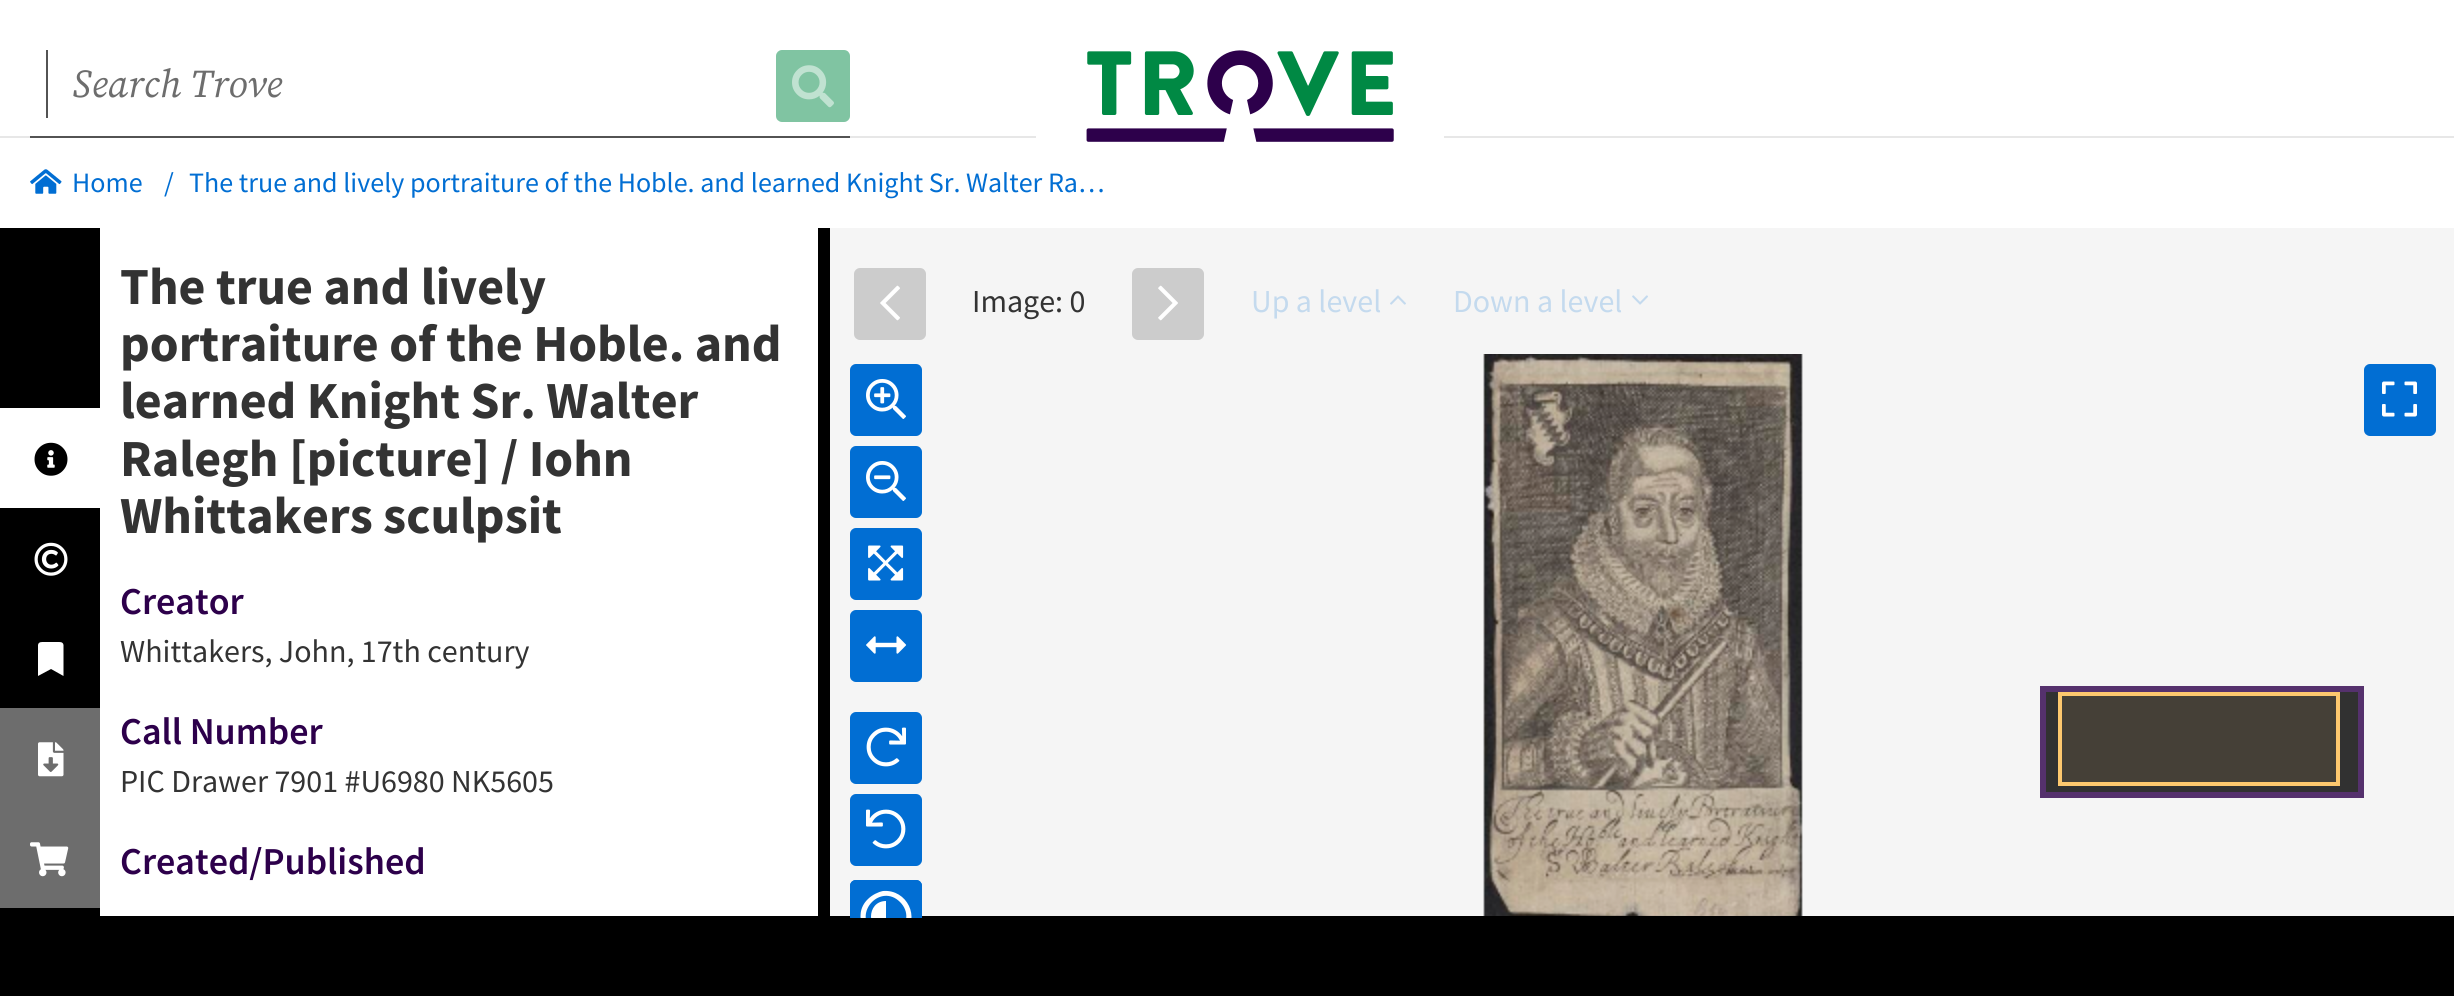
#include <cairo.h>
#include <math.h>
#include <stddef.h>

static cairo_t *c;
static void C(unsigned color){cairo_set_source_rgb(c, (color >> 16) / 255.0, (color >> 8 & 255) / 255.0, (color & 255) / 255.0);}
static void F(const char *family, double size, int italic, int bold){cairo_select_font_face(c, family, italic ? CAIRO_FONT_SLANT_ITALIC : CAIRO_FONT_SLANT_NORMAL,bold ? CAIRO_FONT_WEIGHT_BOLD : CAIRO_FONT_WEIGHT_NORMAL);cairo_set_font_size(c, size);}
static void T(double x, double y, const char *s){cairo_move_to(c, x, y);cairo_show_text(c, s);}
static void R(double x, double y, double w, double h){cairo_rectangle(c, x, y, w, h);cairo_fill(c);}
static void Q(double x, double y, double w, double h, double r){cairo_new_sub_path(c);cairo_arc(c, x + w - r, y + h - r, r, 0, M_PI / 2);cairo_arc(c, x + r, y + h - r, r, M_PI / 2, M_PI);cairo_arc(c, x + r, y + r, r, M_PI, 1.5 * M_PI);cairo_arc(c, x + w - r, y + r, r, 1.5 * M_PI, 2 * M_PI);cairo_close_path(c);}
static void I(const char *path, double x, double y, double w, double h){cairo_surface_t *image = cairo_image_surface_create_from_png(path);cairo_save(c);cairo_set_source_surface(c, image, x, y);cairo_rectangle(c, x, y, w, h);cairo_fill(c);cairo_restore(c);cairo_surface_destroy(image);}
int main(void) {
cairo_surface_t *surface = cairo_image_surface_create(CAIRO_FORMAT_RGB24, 2454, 996);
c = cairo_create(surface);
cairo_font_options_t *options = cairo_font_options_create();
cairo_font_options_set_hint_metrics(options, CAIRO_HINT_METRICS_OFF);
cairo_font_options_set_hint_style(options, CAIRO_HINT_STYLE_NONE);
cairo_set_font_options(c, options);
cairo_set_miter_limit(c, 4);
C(0xffffff);
cairo_paint(c);
C(0xe7e7e7);
R(0,136,2454,2);
C(0x535353);
R(46,50,2,68);
F("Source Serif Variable",39.25,1,0);
C(0x6d6d6d);
T(72,97,"Search Trove");
C(0x80c4a2);
Q(778,52,70,68,4);
cairo_fill_preserve(c);
cairo_set_line_width(c,4);
cairo_stroke(c);
I("1.png",792,65,42,43);
C(0x535353);
R(30,136,820,2);
C(0xffffff);
R(1036,136,408,2);
I("2.png",1086,50,308,92);
I("3.png",30,169,32,25);
F("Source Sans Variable",28,0,0);
C(0x016ed3);
T(72,192,"Home");
T(164,192,"/");
T(189,192,"The true and lively portraiture of the Hoble. and learned Knight Sr. Walter Ra…");
C(0x000000);
R(0,228,100,688);
C(0xffffff);
R(0,408,100,100);
I("4.png",34,442,34,34);
I("5.png",34,542,34,34);
cairo_new_path(c);
cairo_move_to(c,38,676);
cairo_line_to(c,38,645);
cairo_curve_to(c,38.5,641.5,42,642,44.5,642);
cairo_line_to(c,57,642);
cairo_curve_to(c,59.5,642,63,641.5,63.5,645);
cairo_line_to(c,63.5,676);
cairo_line_to(c,51,669);
cairo_close_path(c);
cairo_fill(c);
C(0x6d6d6d);
R(0,708,100,200);
I("6.png",38,742,26,35);
I("7.png",30,842,39,35);
F("Source Sans Variable",52,0,1);
C(0x333333);
T(120,304,"The true and lively");
T(120,361,"portraiture of the Hoble. and");
T(120,418,"learned Knight Sr. Walter");
T(120,476,"Ralegh [picture] / Iohn");
T(120,533,"Whittakers sculpsit");
F("Source Sans Variable SemiBold",38,0,0);
C(0x2d004b);
T(120,614,"Creator");
F("Source Sans Variable",32,0,0);
C(0x333333);
T(120,662,"Whittakers, John, 17th century");
F("Source Sans Variable SemiBold",38,0,0);
C(0x2d004b);
T(120,744,"Call Number");
F("Source Sans Variable",32,0,0);
C(0x333333);
T(120,792,"PIC Drawer 7901 #U6980 NK5605");
F("Source Sans Variable SemiBold",38,0,0);
C(0x2d004b);
T(120,874,"Created/Published");
C(0x000000);
R(818,228,12,688);
C(0xf5f5f5);
R(830,228,1624,688);
C(0xcccccc);
Q(856,270,68,68,4);
cairo_fill_preserve(c);
cairo_stroke(c);
I("8.png",880,285,20,36);
F("Source Sans Variable",32,0,0);
C(0x333333);
T(972,312,"Image: 0");
C(0xcccccc);
Q(1134,270,68,68,4);
cairo_fill_preserve(c);
cairo_stroke(c);
I("9.png",1158,285,20,36);
C(0xc4daee);
T(1251,312,"Up a level");
I("10.png",1390,295,16,10);
T(1453,312,"Down a level");
I("11.png",1632,295,16,10);
C(0x016ed3);
Q(852,366,68,68,4);
cairo_fill_preserve(c);
cairo_stroke(c);
I("12.png",866,379,40,40);
Q(852,448,68,68,4);
cairo_fill_preserve(c);
cairo_stroke(c);
I("13.png",866,461,40,40);
Q(852,530,68,68,4);
cairo_fill_preserve(c);
cairo_stroke(c);
I("14.png",868,545,36,36);
Q(852,612,68,68,4);
cairo_fill_preserve(c);
cairo_stroke(c);
I("15.png",866,636,41,18);
Q(852,714,68,68,4);
cairo_fill_preserve(c);
cairo_stroke(c);
I("16.png",866,727,40,40);
Q(852,796,68,68,4);
cairo_fill_preserve(c);
cairo_stroke(c);
I("17.png",866,809,40,40);
C(0x000000);
R(0,916,2454,80);
C(0x016ed3);
cairo_new_path(c);
cairo_move_to(c,856,880);
cairo_line_to(c,916,880);
cairo_curve_to(c,919.5,880,922,882.5,922,886);
cairo_line_to(c,922,918);
cairo_line_to(c,850,918);
cairo_line_to(c,850,886);
cairo_curve_to(c,850,882.5,852.5,880,856,880);
cairo_close_path(c);
cairo_fill(c);
cairo_save(c);
cairo_rectangle(c,830,354,1624,564);
cairo_clip(c);
Q(852,882,68,68,4);
cairo_stroke(c);
C(0xffffff);
cairo_new_path(c);
cairo_move_to(c,900,902);
cairo_curve_to(c,881,883,853,912,872,931);
cairo_curve_to(c,891,950,919,921,900,902);
cairo_close_path(c);
cairo_move_to(c,868,899);
cairo_curve_to(c,872,895,878,892,883,891);
cairo_curve_to(c,907,889,921,918,904,934);
cairo_curve_to(c,900,938,894,941,889,942);
cairo_curve_to(c,865,944,851,915,868,899);
cairo_close_path(c);
cairo_move_to(c,886,901);
cairo_line_to(c,886,932);
cairo_curve_to(c,866,932,866,901,886,901);
cairo_close_path(c);
cairo_fill(c);
cairo_restore(c);
I("18.png",1483,354,320,562);
C(0x313131);
cairo_rectangle(c,2043,689,318,106);
cairo_fill_preserve(c);
C(0x55316d);
cairo_set_line_width(c,6);
cairo_stroke(c);
C(0x454037);
cairo_rectangle(c,2060,694,278,90);
cairo_fill_preserve(c);
C(0xfdc86e);
cairo_set_line_width(c,4);
cairo_stroke(c);
C(0x016ed3);
Q(2366,366,68,68,4);
cairo_fill_preserve(c);
cairo_stroke(c);
I("19.png",2382,381,35,36);
cairo_surface_write_to_png(surface, "o.png");
cairo_font_options_destroy(options);
cairo_destroy(c);
cairo_surface_destroy(surface);
return 0;
}
